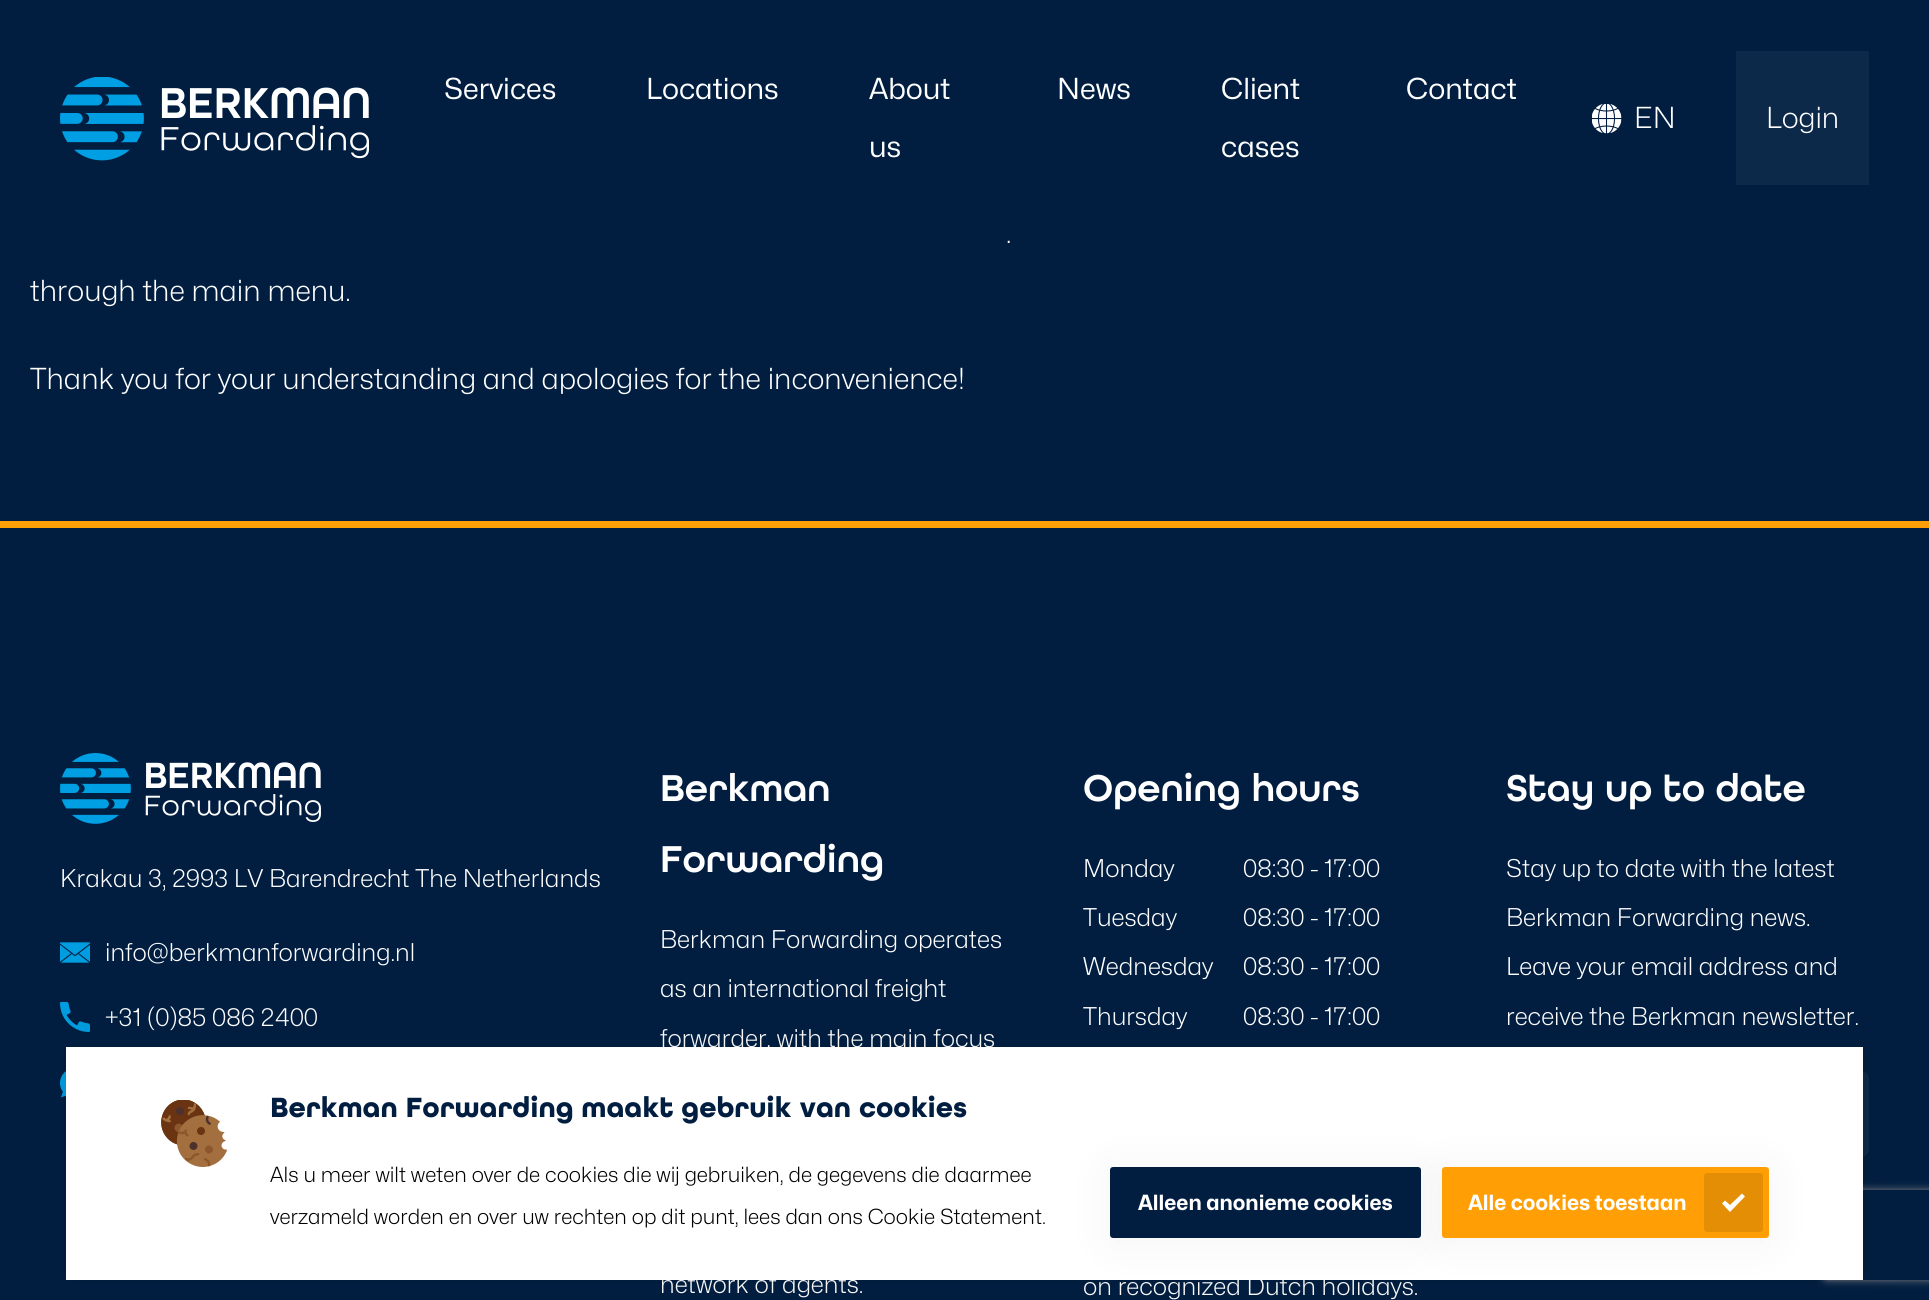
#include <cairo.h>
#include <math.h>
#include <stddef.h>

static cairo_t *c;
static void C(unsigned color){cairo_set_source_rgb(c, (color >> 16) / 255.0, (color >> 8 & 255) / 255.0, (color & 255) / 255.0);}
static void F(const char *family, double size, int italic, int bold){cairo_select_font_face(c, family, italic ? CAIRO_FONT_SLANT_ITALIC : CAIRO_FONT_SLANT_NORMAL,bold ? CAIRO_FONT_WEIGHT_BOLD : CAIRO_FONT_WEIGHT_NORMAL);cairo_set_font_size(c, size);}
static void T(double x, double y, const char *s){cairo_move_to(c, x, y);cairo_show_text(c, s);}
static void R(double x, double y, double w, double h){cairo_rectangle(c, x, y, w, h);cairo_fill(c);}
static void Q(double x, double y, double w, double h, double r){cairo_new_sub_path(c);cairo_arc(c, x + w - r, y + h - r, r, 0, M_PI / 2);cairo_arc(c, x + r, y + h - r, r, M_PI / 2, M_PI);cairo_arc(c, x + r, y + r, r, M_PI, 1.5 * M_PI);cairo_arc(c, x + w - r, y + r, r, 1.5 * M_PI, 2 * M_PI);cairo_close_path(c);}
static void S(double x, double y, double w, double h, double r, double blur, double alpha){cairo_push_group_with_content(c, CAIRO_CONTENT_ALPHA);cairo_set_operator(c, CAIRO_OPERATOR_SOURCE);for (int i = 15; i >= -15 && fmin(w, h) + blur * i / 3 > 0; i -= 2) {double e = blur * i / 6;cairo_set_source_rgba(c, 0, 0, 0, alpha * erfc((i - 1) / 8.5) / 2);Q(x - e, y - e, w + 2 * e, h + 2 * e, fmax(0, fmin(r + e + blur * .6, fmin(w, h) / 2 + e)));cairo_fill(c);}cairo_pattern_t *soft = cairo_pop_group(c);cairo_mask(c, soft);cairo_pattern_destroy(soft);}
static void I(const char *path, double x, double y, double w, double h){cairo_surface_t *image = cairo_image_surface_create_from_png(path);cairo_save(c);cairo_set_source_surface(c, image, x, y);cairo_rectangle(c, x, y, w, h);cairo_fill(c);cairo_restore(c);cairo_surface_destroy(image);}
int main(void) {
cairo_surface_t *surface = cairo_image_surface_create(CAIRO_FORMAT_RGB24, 1929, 1300);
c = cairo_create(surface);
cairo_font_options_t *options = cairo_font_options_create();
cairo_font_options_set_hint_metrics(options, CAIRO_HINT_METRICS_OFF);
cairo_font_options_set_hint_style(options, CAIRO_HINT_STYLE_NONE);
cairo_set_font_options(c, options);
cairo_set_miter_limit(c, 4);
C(0x011e41);
cairo_paint(c);
I("1.png",60,77,309,84);
F("Mona Sans",29.1,0,0);
C(0xffffff);
T(444,99,"Services");
T(646,99,"Locations");
T(869,99,"About");
T(869,157,"us");
T(1057,99,"News");
T(1221,99,"Client");
T(1221,157,"cases");
T(1406,99,"Contact");
I("2.png",1592,104,30,30);
F("Mona Sans Light",29.1,0,0);
T(1634,128,"EN");
cairo_set_source_rgba(c,1,1,1,0.05);
R(1736,51,133,134);
C(0xffffff);
T(1766,128,"Login");
T(1006,243,".");
T(30,301,"through the main menu.");
T(30,389,"Thank you for your understanding and apologies for the inconvenience!");
C(0xff9f05);
R(0,521,1929,7);
I("3.png",60,753,261,71);
F("Mona Sans Light",24.6,0,0);
C(0xffffff);
T(60,887,"Krakau 3, 2993 LV Barendrecht The Netherlands");
I("4.png",60,942,30,21);
T(105,961,"info@berkmanforwarding.nl");
I("5.png",60,1002,30,30);
T(105,1026,"+31 (0)85 086 2400");
I("6.png",60,1071,6,27);
F("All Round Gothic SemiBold",39.5,0,0);
T(660,801,"Berkman");
T(660,872,"Forwarding");
F("Mona Sans Light",24.6,0,0);
T(660,948,"Berkman Forwarding operates");
T(660,997,"as an international freight");
T(660,1047,"forwarder, with the main focus");
T(660,1293,"network of agents.");
F("All Round Gothic SemiBold",39.5,0,0);
T(1083,801,"Opening hours");
F("Mona Sans Light",24.6,0,0);
T(1083,877,"Monday");
T(1243,877,"08:30 - 17:00");
T(1083,926,"Tuesday");
T(1243,926,"08:30 - 17:00");
T(1083,975,"Wednesday");
T(1243,975,"08:30 - 17:00");
T(1083,1025,"Thursday");
T(1243,1025,"08:30 - 17:00");
T(1083,1295,"on recognized Dutch holidays.");
F("All Round Gothic SemiBold",39.5,0,0);
T(1506,801,"Stay up to date");
F("Mona Sans Light",24.6,0,0);
T(1506,877,"Stay up to date with the latest");
T(1506,926,"Berkman Forwarding news.");
T(1506,975,"Leave your email address and");
T(1506,1025,"receive the Berkman newsletter.");
C(0x0e294b);
Q(1506,1071,363,86,8);
cairo_fill(c);
C(0x000000);
S(66,1047,1797,233,0,22.5,.1);
cairo_save(c);
cairo_set_fill_rule(c,CAIRO_FILL_RULE_EVEN_ODD);
cairo_new_path(c);
cairo_move_to(c,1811,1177);
cairo_line_to(c,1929,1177);
cairo_line_to(c,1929,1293);
cairo_line_to(c,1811,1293);
cairo_close_path(c);
cairo_move_to(c,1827,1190);
cairo_line_to(c,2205,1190);
cairo_curve_to(c,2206.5,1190,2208,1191.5,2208,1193);
cairo_line_to(c,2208,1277);
cairo_curve_to(c,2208,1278.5,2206.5,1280,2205,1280);
cairo_line_to(c,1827,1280);
cairo_curve_to(c,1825.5,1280,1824,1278.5,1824,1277);
cairo_line_to(c,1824,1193);
cairo_curve_to(c,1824,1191.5,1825.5,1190,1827,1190);
cairo_close_path(c);
cairo_clip(c);
C(0x808080);
S(1824,1190,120,90,3,4,1);
cairo_restore(c);
C(0xffffff);
R(66,1047,1797,233);
I("7.png",161,1100,67,67);
F("All Round Gothic",29.4,0,1);
C(0x011e41);
T(270,1117,"Berkman Forwarding maakt gebruik van cookies");
F("Mona Sans Light",21,0,0);
C(0x000000);
T(270,1182,"Als u meer wilt weten over de cookies die wij gebruiken, de gegevens die daarmee");
T(270,1224,"verzameld worden en over uw rechten op dit punt, lees dan ons Cookie Statement.");
C(0x000000);
S(1110,1170,311,71,3,22.5,.05);
C(0x011e41);
Q(1110,1167,311,71,3);
cairo_fill(c);
F("Mona Sans",21,0,1);
C(0xffffff);
T(1138,1210,"Alleen anonieme cookies");
C(0x000000);
S(1442,1170,327,71,3,22.5,.05);
C(0xff9f05);
Q(1442,1167,327,71,3);
cairo_fill(c);
C(0xffffff);
T(1468,1210,"Alle cookies toestaan");
C(0xe38e04);
Q(1704,1173,59,59,3);
cairo_fill(c);
C(0xffffff);
cairo_new_path(c);
cairo_move_to(c,1742,1193.5);
cairo_line_to(c,1730,1205);
cairo_line_to(c,1725,1200.5);
cairo_line_to(c,1722,1203.5);
cairo_line_to(c,1730,1212);
cairo_line_to(c,1745,1196.5);
cairo_close_path(c);
cairo_fill(c);
cairo_surface_write_to_png(surface, "o.png");
cairo_font_options_destroy(options);
cairo_destroy(c);
cairo_surface_destroy(surface);
return 0;
}
